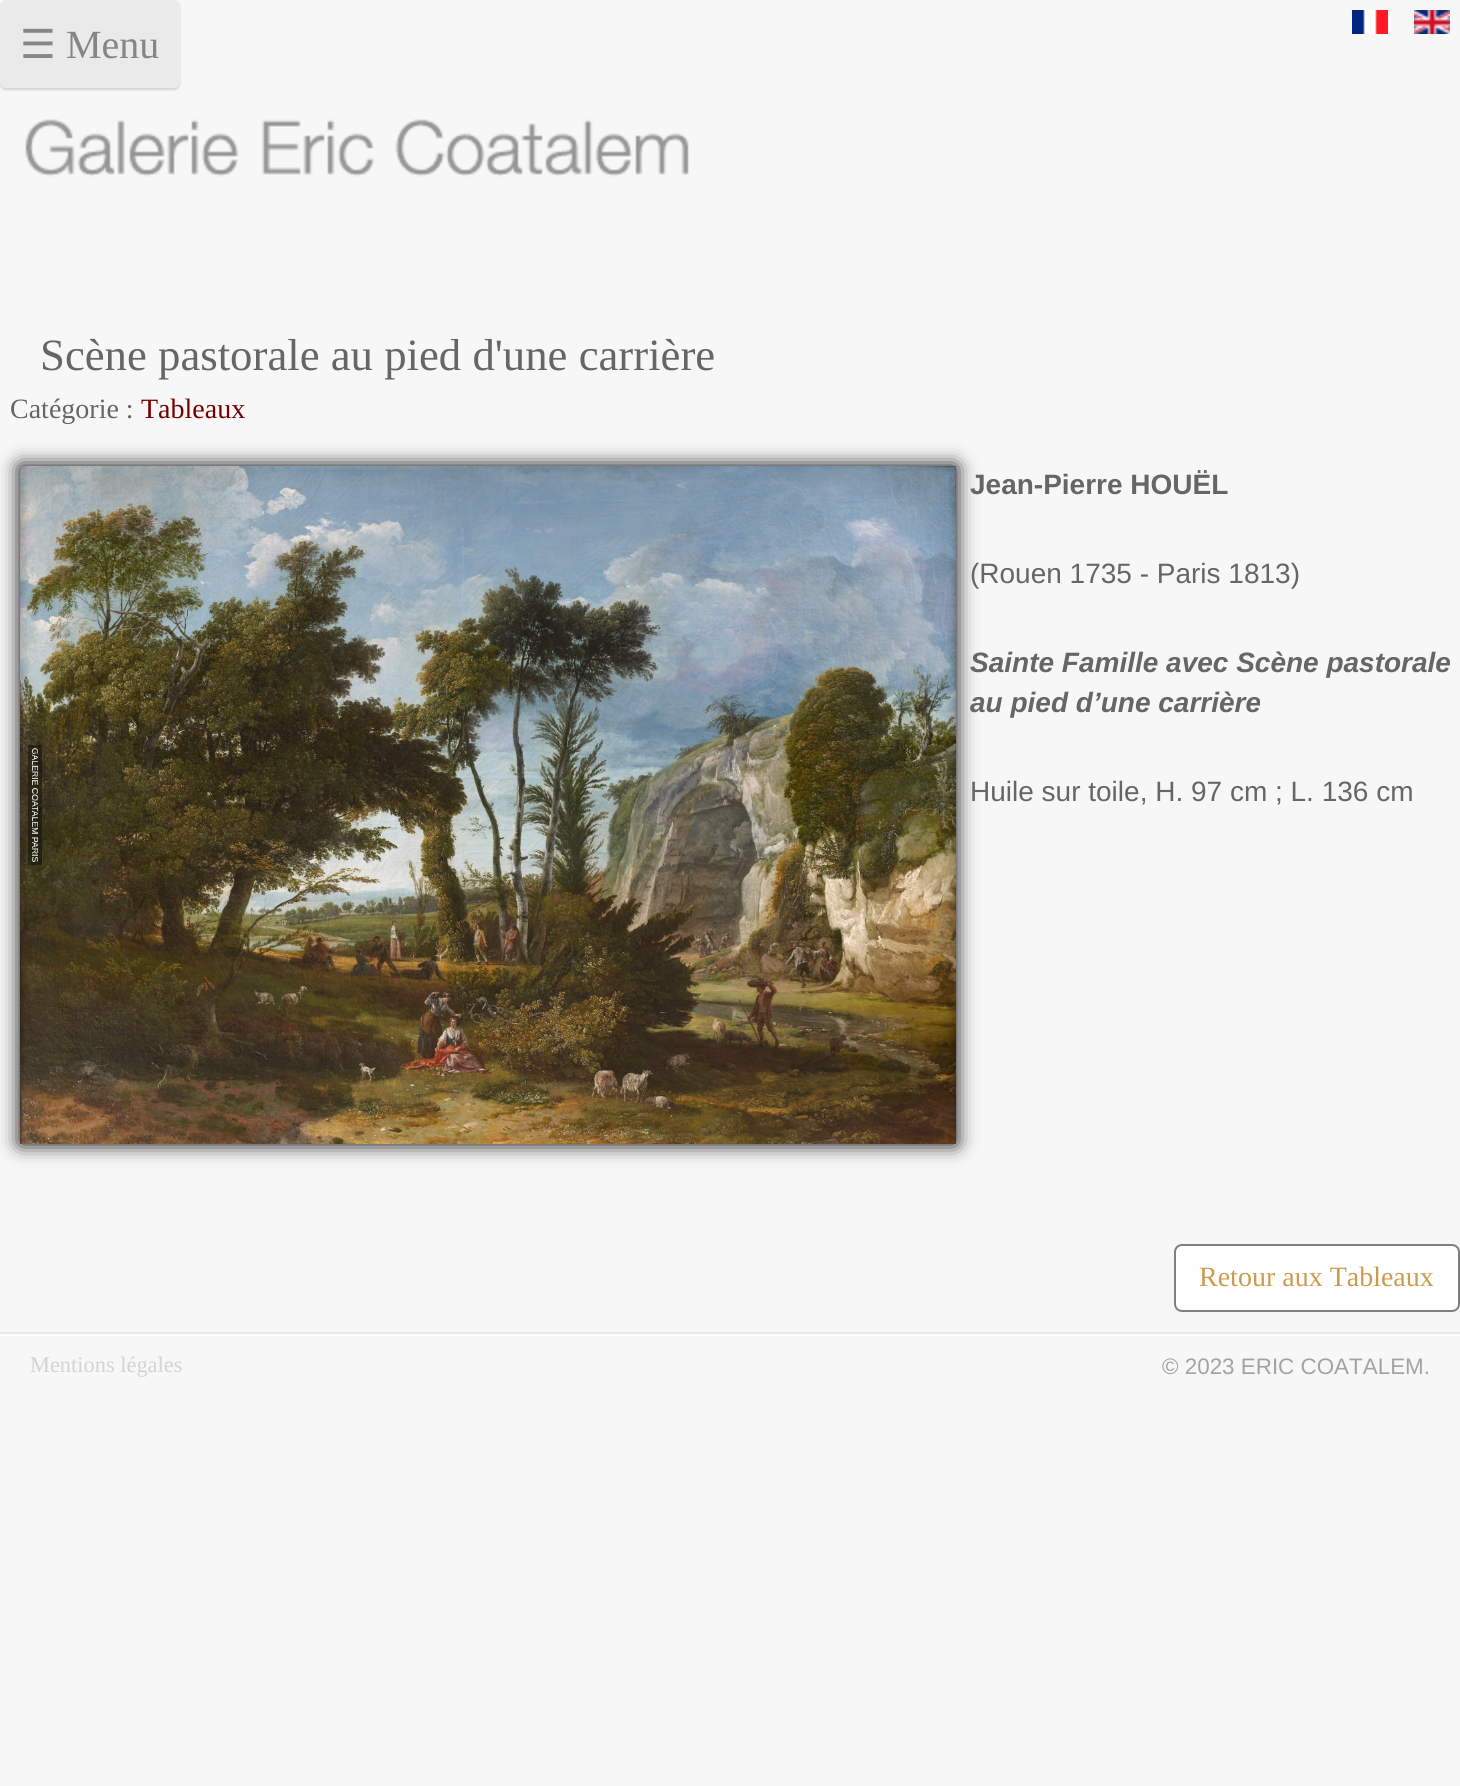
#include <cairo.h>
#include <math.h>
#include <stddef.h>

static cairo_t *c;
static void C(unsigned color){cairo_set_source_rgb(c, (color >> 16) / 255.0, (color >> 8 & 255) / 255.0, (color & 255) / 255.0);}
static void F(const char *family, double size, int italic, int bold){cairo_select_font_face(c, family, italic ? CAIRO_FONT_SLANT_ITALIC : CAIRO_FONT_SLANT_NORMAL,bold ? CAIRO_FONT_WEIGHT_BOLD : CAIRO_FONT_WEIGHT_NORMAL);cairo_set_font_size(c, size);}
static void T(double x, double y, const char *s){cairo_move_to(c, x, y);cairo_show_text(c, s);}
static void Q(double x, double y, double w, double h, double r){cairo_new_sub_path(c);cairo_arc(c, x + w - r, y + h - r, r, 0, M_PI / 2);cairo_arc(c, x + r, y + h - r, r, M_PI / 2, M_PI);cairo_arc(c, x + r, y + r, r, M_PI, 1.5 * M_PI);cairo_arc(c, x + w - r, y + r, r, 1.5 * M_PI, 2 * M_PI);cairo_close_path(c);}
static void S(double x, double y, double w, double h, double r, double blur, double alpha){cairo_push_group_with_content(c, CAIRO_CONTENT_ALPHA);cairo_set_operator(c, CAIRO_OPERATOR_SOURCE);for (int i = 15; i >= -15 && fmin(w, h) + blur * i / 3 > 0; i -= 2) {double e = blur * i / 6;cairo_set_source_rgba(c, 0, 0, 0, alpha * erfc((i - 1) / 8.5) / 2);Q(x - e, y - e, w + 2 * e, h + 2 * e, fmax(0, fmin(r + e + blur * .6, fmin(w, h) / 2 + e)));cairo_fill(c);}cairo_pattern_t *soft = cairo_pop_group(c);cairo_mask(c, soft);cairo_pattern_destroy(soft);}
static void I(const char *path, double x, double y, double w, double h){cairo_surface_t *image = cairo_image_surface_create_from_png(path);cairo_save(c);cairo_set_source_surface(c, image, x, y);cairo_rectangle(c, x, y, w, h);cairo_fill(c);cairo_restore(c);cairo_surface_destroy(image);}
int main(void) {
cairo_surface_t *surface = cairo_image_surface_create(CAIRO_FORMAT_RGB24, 1460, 1786);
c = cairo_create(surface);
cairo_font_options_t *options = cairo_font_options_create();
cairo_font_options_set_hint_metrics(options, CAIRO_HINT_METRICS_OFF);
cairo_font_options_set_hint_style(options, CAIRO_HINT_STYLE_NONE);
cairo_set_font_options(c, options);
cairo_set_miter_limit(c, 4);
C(0xf7f7f7);
cairo_paint(c);
I("1.png",1352,10,36,24);
I("2.png",1414,10,36,24);
C(0x000000);
S(0,2,180,88,6,1,.15);
C(0xeaeaea);
Q(0,0,180,88,6);
cairo_fill(c);
F("DejaVu Sans",40,0,0);
C(0x868686);
T(20,58,"☰");
F("Liberation Serif",40,0,0);
T(66,58,"Menu");
I("3.png",25,119,664,58);
F("Liberation Serif",44.75,0,0);
C(0x666666);
T(40,370,"Scène pastorale au pied d'une carrière");
F("Liberation Serif",28,0,0);
T(10,418,"Catégorie :");
C(0x740000);
T(141,418,"Tableaux");
C(0x000000);
S(20,466,936,678,0,10,1);
I("4.png",20,466,936,678);
F("Liberation Sans",28,0,1);
C(0x666666);
T(970,494,"Jean-Pierre HOUËL");
F("Liberation Sans",28,0,0);
T(970,583,"(Rouen 1735 - Paris 1813)");
F("Liberation Sans",28,1,1);
T(970,672,"Sainte Famille avec Scène pastorale");
T(970,712,"au pied d’une carrière");
F("Liberation Sans",28,0,0);
T(970,801,"Huile sur toile, H. 97 cm ; L. 136 cm");
C(0xffffff);
Q(1175,1245,284,66,7);
cairo_fill_preserve(c);
C(0x808080);
cairo_stroke(c);
F("Liberation Serif",28,0,0);
C(0xcd9b4e);
T(1199,1286,"Retour aux Tableaux");
I("5.png",0,1332,1460,4);
F("Liberation Serif",22.4,0,0);
C(0xd3d3d3);
T(30,1372,"Mentions légales");
F("Liberation Sans",22.4,0,0);
C(0xa3a3a3);
T(1162,1374,"© 2023 ERIC COATALEM.");
cairo_surface_write_to_png(surface, "o.png");
cairo_font_options_destroy(options);
cairo_destroy(c);
cairo_surface_destroy(surface);
return 0;
}
